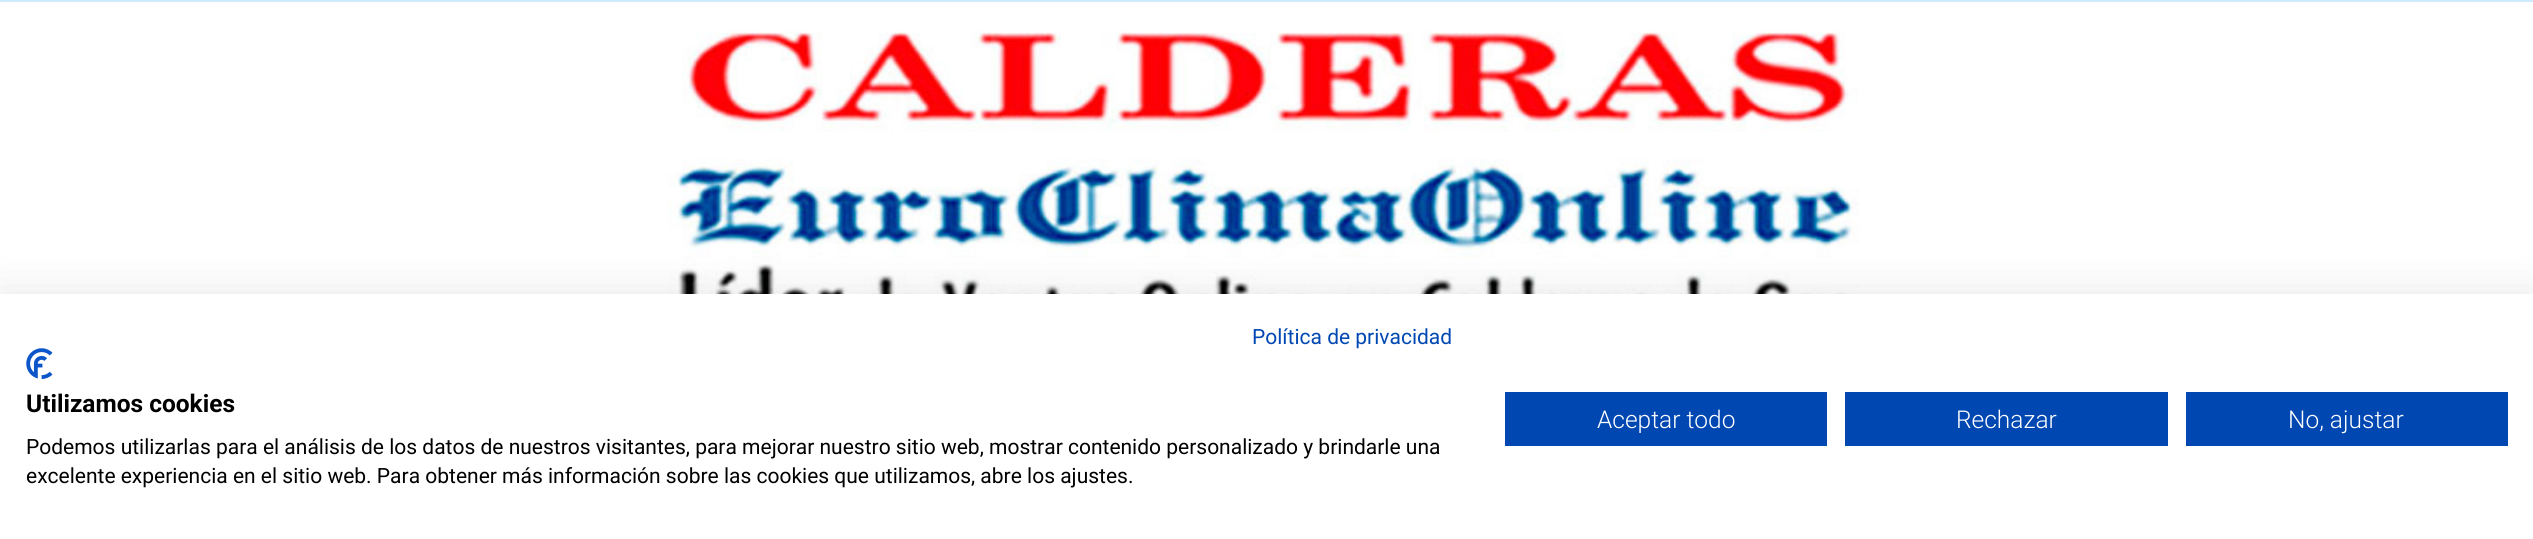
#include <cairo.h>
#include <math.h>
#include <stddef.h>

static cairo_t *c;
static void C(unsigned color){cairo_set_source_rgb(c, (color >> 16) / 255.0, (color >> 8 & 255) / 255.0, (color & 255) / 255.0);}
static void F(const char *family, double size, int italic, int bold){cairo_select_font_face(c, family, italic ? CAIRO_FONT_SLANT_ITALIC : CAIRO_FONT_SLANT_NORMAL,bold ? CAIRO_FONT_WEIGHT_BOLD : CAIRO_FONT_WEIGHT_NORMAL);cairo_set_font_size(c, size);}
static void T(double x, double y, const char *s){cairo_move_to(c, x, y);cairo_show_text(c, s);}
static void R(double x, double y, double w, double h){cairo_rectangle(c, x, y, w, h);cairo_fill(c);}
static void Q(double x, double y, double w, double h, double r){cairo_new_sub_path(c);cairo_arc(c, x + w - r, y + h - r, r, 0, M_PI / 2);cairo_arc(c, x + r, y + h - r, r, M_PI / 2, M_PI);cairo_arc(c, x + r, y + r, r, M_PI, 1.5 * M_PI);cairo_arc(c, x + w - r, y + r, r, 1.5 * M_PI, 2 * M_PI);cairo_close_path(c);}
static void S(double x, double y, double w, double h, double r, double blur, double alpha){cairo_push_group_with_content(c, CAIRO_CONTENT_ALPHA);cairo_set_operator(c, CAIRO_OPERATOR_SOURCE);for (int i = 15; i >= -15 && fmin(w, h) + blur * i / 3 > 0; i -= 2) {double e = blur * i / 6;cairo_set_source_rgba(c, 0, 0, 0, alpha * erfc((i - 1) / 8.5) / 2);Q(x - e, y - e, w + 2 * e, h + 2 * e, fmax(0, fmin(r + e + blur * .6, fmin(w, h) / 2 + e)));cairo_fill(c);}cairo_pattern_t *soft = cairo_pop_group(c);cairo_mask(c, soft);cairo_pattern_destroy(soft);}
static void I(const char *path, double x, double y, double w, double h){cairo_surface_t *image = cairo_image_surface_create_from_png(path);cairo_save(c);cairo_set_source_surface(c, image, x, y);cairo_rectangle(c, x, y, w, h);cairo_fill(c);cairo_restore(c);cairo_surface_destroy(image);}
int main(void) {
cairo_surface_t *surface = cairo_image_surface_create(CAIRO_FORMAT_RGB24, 2533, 539);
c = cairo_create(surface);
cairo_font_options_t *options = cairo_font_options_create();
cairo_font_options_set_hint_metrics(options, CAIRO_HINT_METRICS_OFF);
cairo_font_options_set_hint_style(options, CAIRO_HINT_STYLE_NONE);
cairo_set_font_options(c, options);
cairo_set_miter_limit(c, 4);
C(0xffffff);
cairo_paint(c);
C(0xceeafc);
R(0,0,2533,2);
I("1.png",668,31,1191,263);
C(0x000000);
S(0,294,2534,245,0,21,.1);
C(0xffffff);
R(0,294,2533,245);
F("Roboto",21,0,0);
C(0x0047b2);
T(1252,344,"Política de privacidad");
I("2.png",26,348,27,31);
F("Roboto",24.5,0,1);
C(0x000000);
T(26,412,"Utilizamos cookies");
F("Roboto",21,0,0);
T(26,454,"Podemos utilizarlas para el análisis de los datos de nuestros visitantes, para mejorar nuestro sitio web, mostrar contenido personalizado y brindarle una");
T(26,483,"excelente experiencia en el sitio web. Para obtener más información sobre las cookies que utilizamos, abre los ajustes.");
C(0x0047b2);
R(1505,392,322,54);
F("Roboto Light",24.5,0,0);
C(0xffffff);
T(1597,428,"Aceptar todo");
C(0x0047b2);
R(1845,392,323,54);
C(0xffffff);
T(1956,428,"Rechazar");
C(0x0047b2);
R(2186,392,322,54);
C(0xffffff);
T(2288,428,"No, ajustar");
cairo_surface_write_to_png(surface, "o.png");
cairo_font_options_destroy(options);
cairo_destroy(c);
cairo_surface_destroy(surface);
return 0;
}
